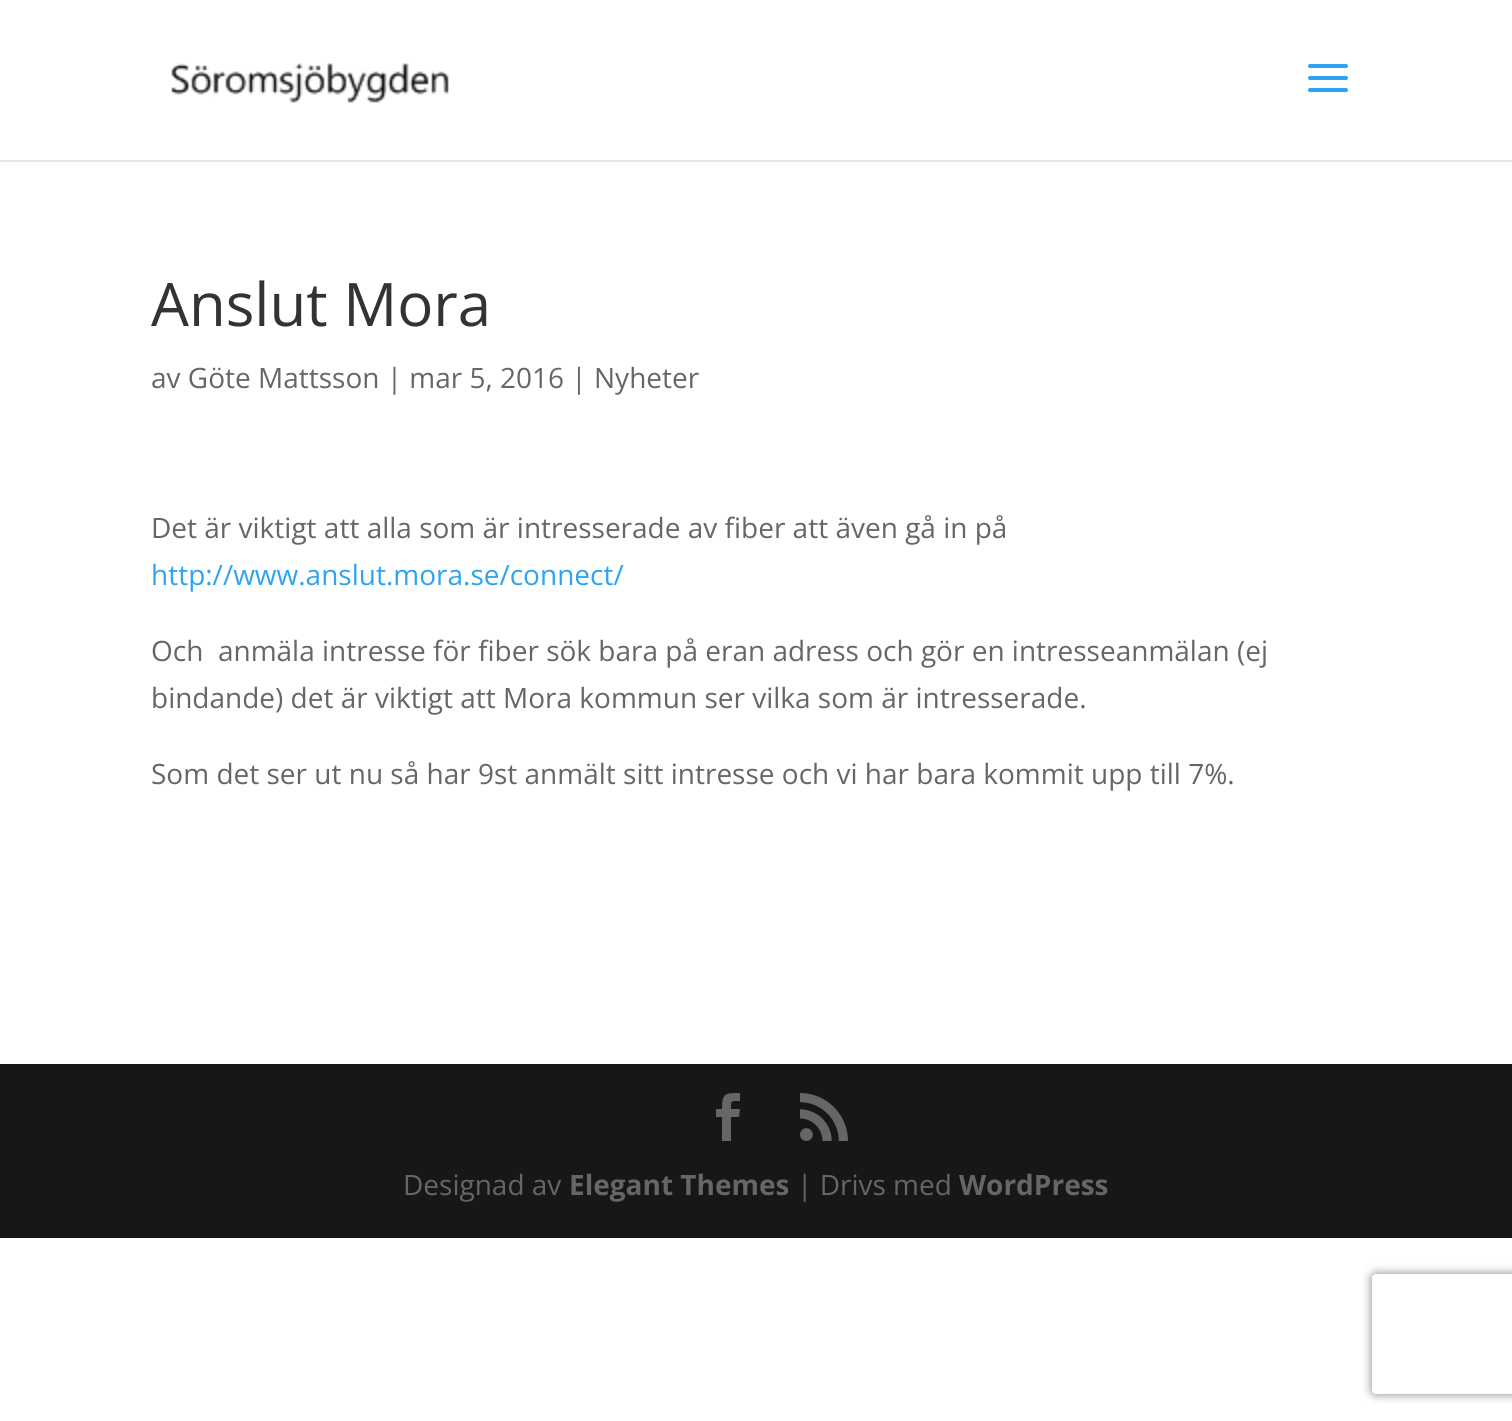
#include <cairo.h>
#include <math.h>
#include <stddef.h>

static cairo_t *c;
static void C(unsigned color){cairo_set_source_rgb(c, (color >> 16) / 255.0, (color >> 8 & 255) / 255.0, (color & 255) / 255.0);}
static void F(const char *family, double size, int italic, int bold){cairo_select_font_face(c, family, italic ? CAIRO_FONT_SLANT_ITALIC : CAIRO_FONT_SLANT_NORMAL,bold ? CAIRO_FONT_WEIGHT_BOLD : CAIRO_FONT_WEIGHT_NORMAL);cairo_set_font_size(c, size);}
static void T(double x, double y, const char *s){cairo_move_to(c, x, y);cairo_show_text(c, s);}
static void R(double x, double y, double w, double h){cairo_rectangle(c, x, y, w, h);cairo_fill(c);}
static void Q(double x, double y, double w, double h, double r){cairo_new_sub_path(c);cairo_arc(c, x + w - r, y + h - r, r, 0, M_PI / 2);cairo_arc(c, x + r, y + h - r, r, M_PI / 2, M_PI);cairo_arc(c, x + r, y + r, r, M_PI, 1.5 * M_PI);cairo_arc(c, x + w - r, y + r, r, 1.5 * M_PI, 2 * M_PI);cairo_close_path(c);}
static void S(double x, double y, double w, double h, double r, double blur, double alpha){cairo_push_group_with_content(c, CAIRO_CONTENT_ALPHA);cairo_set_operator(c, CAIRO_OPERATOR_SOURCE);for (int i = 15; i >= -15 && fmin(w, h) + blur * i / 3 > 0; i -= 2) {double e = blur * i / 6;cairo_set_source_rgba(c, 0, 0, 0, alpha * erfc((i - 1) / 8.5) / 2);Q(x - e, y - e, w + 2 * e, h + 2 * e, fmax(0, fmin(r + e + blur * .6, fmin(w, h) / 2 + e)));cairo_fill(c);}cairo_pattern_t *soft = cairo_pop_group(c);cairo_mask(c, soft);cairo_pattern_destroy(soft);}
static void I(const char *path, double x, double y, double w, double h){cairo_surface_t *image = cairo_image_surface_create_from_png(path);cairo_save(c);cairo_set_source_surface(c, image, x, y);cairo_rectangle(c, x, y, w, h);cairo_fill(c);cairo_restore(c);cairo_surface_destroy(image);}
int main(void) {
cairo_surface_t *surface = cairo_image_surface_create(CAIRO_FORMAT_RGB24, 1512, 1421);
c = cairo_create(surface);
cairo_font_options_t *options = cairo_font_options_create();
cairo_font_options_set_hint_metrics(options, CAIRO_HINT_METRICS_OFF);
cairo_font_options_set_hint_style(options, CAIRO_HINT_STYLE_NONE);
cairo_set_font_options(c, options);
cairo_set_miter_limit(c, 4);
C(0xffffff);
cairo_paint(c);
C(0xe6e6e6);
R(0,160,1512,2);
I("1.png",171,63,278,40);
I("2.png",1308,64,40,28);
F("Open Sans",60,0,0);
C(0x333333);
T(151,326,"Anslut Mora");
F("Open Sans",28,0,0);
C(0x666666);
T(151,388,"av Göte Mattsson | mar 5, 2016 | Nyheter");
T(151,538,"Det är viktigt att alla som är intresserade av fiber att även gå in på");
C(0x2ea3f2);
T(151,585,"http://www.anslut.mora.se/connect/");
C(0x666666);
T(151,661,"Och  anmäla intresse för fiber sök bara på eran adress och gör en intresseanmälan (ej");
T(151,708,"bindande) det är viktigt att Mora kommun ser vilka som är intresserade.");
T(151,784,"Som det ser ut nu så har 9st anmält sitt intresse och vi har bara kommit upp till 7%.");
C(0x171717);
R(0,1064,1512,174);
C(0x666666);
cairo_new_path(c);
cairo_move_to(c,722,1141);
cairo_line_to(c,731,1141);
cairo_line_to(c,731,1117);
cairo_line_to(c,739,1117);
cairo_line_to(c,740,1109);
cairo_line_to(c,731,1109);
cairo_curve_to(c,731,1100,731,1101,740,1101);
cairo_line_to(c,740,1093);
cairo_curve_to(c,725,1093,722,1093,722,1109);
cairo_line_to(c,716,1109);
cairo_line_to(c,716,1117);
cairo_line_to(c,722,1117);
cairo_close_path(c);
cairo_fill(c);
I("3.png",800,1093,48,48);
T(403,1195,"Designad av");
F("Open Sans",28,0,1);
T(569,1195,"Elegant Themes");
F("Open Sans",28,0,0);
T(797,1195,"| Drivs med");
F("Open Sans",28,0,1);
T(959,1195,"WordPress");
cairo_save(c);
cairo_set_fill_rule(c,CAIRO_FILL_RULE_EVEN_ODD);
cairo_new_path(c);
cairo_move_to(c,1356,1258);
cairo_line_to(c,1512,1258);
cairo_line_to(c,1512,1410);
cairo_line_to(c,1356,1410);
cairo_close_path(c);
cairo_move_to(c,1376,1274);
cairo_line_to(c,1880,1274);
cairo_curve_to(c,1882,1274,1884,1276,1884,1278);
cairo_line_to(c,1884,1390);
cairo_curve_to(c,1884,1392,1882,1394,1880,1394);
cairo_line_to(c,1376,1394);
cairo_curve_to(c,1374,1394,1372,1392,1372,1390);
cairo_line_to(c,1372,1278);
cairo_curve_to(c,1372,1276,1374,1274,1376,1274);
cairo_close_path(c);
cairo_clip(c);
C(0x808080);
S(1372,1274,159,120,4,5,1);
cairo_restore(c);
cairo_surface_write_to_png(surface, "o.png");
cairo_font_options_destroy(options);
cairo_destroy(c);
cairo_surface_destroy(surface);
return 0;
}
